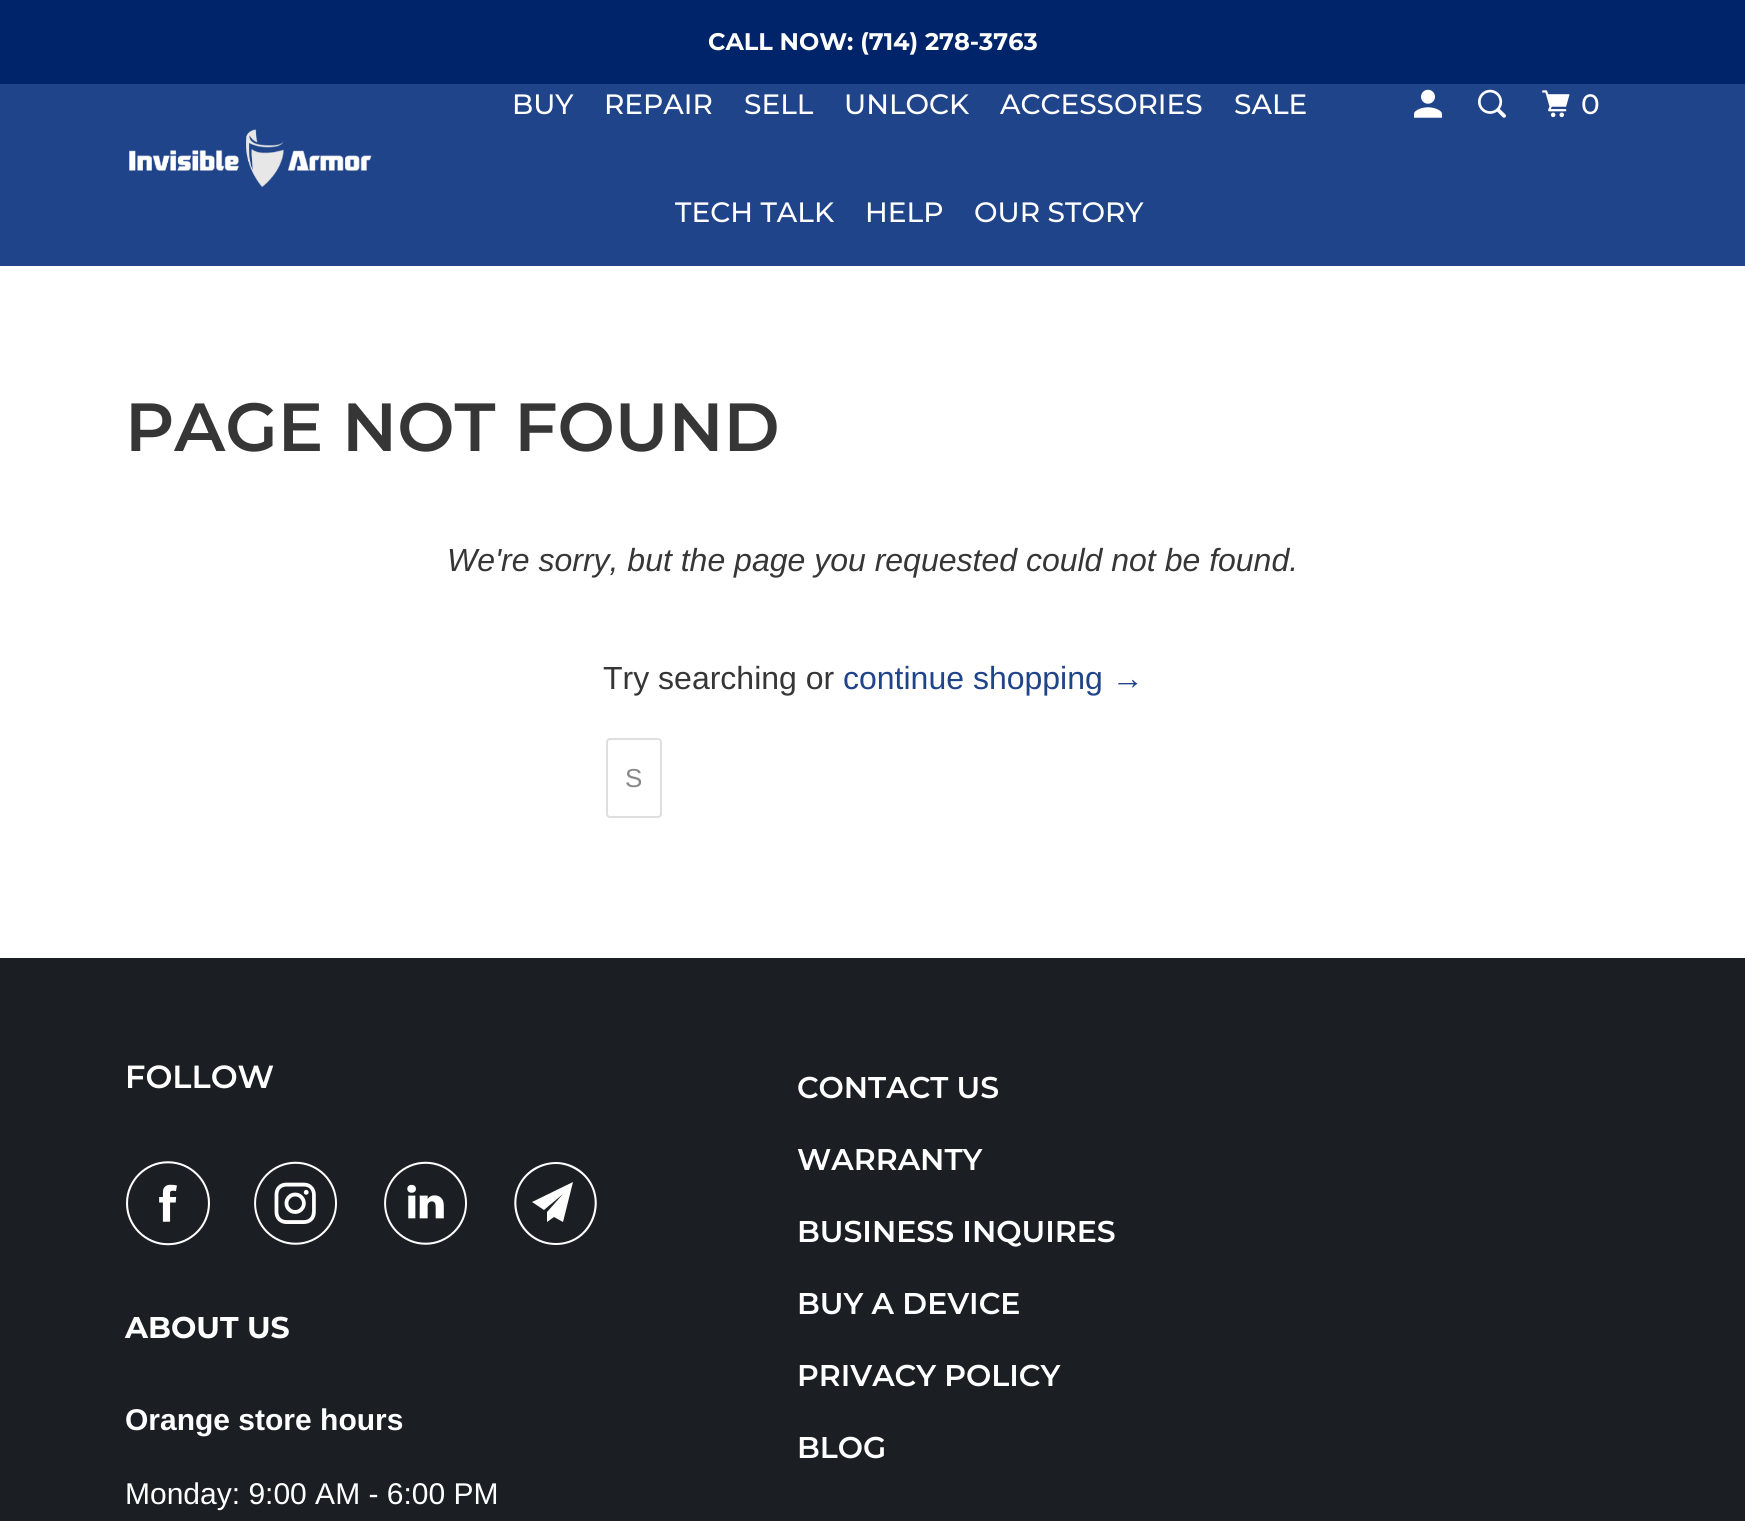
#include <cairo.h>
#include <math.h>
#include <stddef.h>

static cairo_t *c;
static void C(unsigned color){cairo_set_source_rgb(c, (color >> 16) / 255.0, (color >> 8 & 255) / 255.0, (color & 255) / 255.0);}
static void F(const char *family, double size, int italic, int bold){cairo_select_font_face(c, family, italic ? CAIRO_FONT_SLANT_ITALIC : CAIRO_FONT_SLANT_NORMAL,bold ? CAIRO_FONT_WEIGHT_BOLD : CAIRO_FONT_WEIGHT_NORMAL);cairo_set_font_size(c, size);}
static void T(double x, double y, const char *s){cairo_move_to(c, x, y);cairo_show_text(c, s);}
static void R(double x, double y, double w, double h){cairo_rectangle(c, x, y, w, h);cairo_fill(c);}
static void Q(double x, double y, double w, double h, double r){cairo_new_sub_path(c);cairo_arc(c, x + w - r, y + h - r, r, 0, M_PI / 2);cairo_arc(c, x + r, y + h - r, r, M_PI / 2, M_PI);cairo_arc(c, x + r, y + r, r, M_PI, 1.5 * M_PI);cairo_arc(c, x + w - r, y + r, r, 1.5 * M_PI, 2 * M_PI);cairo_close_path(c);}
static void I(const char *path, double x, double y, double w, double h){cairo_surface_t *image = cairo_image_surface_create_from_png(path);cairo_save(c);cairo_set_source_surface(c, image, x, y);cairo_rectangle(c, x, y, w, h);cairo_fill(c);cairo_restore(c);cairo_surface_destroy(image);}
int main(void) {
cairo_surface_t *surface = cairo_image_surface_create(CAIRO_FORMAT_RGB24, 1745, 1521);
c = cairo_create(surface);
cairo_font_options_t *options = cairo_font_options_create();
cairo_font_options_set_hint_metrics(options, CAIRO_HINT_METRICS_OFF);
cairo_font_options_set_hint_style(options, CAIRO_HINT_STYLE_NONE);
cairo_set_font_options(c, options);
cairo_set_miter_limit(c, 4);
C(0xffffff);
cairo_paint(c);
C(0x002469);
R(0,0,1745,84);
F("Montserrat",24,0,1);
C(0xffffff);
T(708,50,"CALL NOW: (714) 278-3763");
C(0x204489);
R(0,84,1745,182);
I("1.png",129,129,243,58);
F("Montserrat Medium",28,0,0);
C(0xffffff);
T(512,114,"BUY");
T(604,114,"REPAIR");
T(744,114,"SELL");
T(844,114,"UNLOCK");
T(1000,114,"ACCESSORIES");
T(1234,114,"SALE");
T(675,222,"TECH TALK");
T(865,222,"HELP");
T(974,222,"OUR STORY");
I("2.png",1414,89,28,29);
I("3.png",1478,89,28,29);
I("4.png",1542,90,28,28);
T(1581,114,"0");
F("Montserrat SemiBold",68,0,0);
C(0x363636);
T(125,451,"PAGE NOT FOUND");
F("Liberation Sans",32,1,0);
T(447,571,"We're sorry, but the page you requested could not be found.");
F("Liberation Sans",32,0,0);
T(603,689,"Try searching or");
C(0x204489);
T(843,689,"continue shopping →");
Q(607,739,54,78,3);
C(0xdfdfdf);
cairo_stroke(c);
F("Liberation Sans",26,0,0);
C(0x888888);
T(625,787,"S");
C(0x1b1f23);
R(0,958,1745,563);
F("Montserrat SemiBold",32,0,0);
C(0xffffff);
T(125,1088,"FOLLOW");
I("5.png",126,1161,84,85);
I("6.png",254,1161,83,84);
I("7.png",384,1161,83,84);
cairo_new_path(c);
cairo_move_to(c,563,1222);
cairo_line_to(c,554,1217);
cairo_line_to(c,547,1222);
cairo_line_to(c,547,1212);
cairo_line_to(c,563,1194);
cairo_line_to(c,544,1210);
cairo_line_to(c,532,1202);
cairo_line_to(c,573,1182);
cairo_close_path(c);
cairo_move_to(c,556,1164);
cairo_curve_to(c,547,1164,539,1167,532,1172);
cairo_curve_to(c,502,1194,518,1243,556,1243);
cairo_curve_to(c,593,1243,609,1194,579,1172);
cairo_curve_to(c,572,1167,564,1164,556,1164);
cairo_close_path(c);
cairo_move_to(c,556,1245);
cairo_curve_to(c,516,1245,499,1194,531,1170);
cairo_curve_to(c,538,1165,547,1162,556,1162);
cairo_curve_to(c,565,1162,573,1165,580,1170);
cairo_curve_to(c,612,1194,595,1245,556,1245);
cairo_close_path(c);
cairo_fill(c);
F("Montserrat",30,0,1);
T(125,1338,"ABOUT US");
F("Liberation Sans",30,0,1);
T(125,1430,"Orange store hours");
F("Liberation Sans",30,0,0);
T(125,1504,"Monday: 9:00 AM - 6:00 PM");
F("Montserrat SemiBold",30,0,0);
T(797,1098,"CONTACT US");
T(797,1170,"WARRANTY");
T(797,1242,"BUSINESS INQUIRES");
T(797,1314,"BUY A DEVICE");
T(797,1386,"PRIVACY POLICY");
T(797,1458,"BLOG");
cairo_surface_write_to_png(surface, "o.png");
cairo_font_options_destroy(options);
cairo_destroy(c);
cairo_surface_destroy(surface);
return 0;
}
